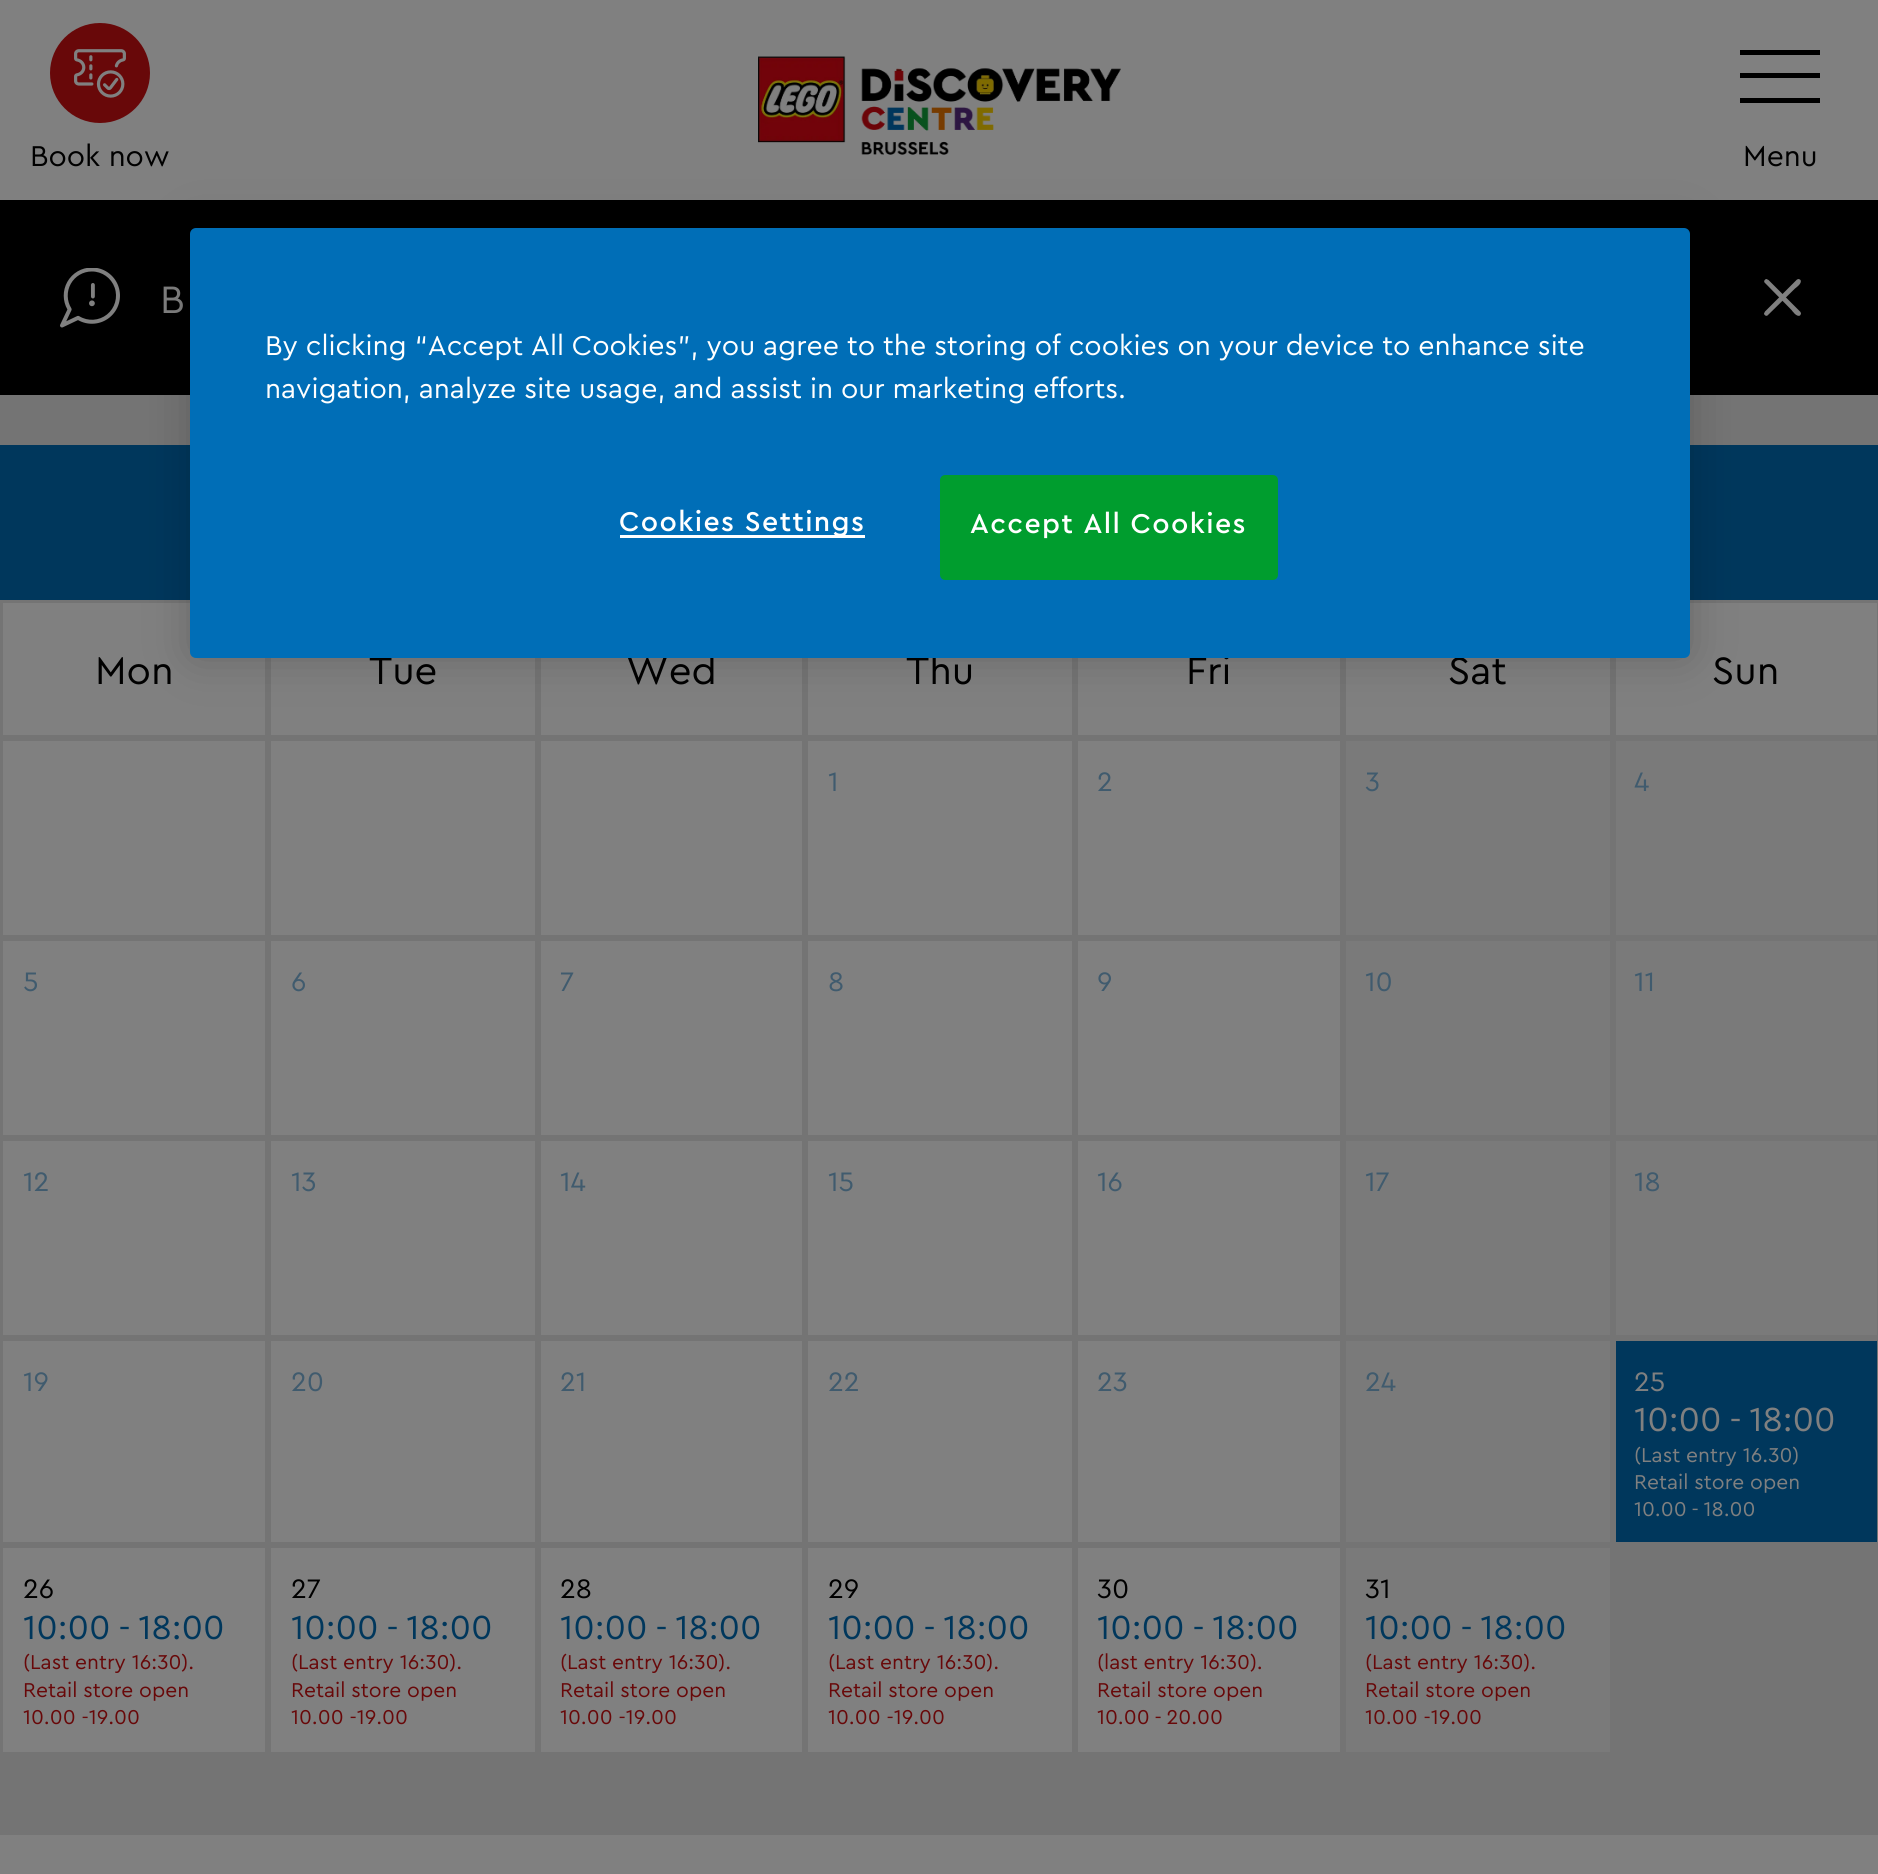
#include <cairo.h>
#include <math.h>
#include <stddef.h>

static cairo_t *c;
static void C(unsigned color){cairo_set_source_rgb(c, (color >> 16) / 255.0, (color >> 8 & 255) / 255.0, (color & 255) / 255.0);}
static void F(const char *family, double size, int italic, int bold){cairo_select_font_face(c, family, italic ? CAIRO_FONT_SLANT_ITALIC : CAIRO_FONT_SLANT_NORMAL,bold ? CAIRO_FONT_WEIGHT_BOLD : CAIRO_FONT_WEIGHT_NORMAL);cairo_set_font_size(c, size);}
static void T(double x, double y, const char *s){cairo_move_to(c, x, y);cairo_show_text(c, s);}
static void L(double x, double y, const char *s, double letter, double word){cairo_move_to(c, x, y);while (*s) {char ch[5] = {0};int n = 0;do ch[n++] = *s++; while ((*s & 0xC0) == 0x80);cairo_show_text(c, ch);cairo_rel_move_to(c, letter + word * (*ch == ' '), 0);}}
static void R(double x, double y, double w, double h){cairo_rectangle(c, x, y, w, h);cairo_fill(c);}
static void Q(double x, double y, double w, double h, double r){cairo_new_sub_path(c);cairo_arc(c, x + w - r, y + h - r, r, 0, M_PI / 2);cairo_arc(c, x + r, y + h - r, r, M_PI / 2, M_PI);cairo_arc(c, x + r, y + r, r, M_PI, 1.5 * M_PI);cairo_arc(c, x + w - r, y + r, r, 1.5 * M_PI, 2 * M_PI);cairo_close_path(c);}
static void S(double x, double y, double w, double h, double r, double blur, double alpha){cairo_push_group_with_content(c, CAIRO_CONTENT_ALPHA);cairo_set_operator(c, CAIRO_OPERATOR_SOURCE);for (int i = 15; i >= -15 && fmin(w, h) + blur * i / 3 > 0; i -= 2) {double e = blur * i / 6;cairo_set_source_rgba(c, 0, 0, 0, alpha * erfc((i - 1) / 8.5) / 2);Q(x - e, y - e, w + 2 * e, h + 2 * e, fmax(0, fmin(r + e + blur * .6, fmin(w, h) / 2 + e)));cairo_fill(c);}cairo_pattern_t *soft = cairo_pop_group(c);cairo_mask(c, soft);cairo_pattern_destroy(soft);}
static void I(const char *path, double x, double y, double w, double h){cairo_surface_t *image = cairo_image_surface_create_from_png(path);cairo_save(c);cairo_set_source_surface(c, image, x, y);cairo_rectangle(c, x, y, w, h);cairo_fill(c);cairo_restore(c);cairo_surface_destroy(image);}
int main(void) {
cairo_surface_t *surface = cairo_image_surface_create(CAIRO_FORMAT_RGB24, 1878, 1874);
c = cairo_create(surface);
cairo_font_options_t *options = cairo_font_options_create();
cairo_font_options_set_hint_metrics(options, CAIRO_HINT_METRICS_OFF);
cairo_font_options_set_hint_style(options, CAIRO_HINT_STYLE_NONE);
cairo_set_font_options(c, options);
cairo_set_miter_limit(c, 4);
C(0x808080);
cairo_paint(c);
C(0x680809);
cairo_arc(c,100,73,50,0,2 * M_PI);
cairo_fill(c);
I("1.png",74,49,52,49);
F("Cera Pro",30,0,0);
C(0x000000);
T(30,166,"Book now");
I("2.png",758,56,363,99);
R(1740,50,80,5);
R(1740,73,80,5);
R(1740,98,80,5);
T(1743,166,"Menu");
R(0,200,1878,195);
I("3.png",60,268,60,60);
F("Cera Pro",40,0,0);
C(0x808080);
T(160,313,"B");
cairo_new_path(c);
cairo_move_to(c,1768.5,280);
cairo_line_to(c,1800.5,312);
cairo_line_to(c,1801,313.5);
cairo_curve_to(c,1801,314,1800.5,315,1800,315.5);
cairo_curve_to(c,1796.5,317.5,1792,310.5,1791.5,310);
cairo_line_to(c,1764.5,282.5);
cairo_curve_to(c,1763.5,281,1765,279,1766.5,279);
cairo_close_path(c);
cairo_fill(c);
cairo_new_path(c);
cairo_move_to(c,1765,311.5);
cairo_line_to(c,1797,279.5);
cairo_line_to(c,1798.5,279);
cairo_curve_to(c,1799,279,1800,279.5,1800.5,280);
cairo_curve_to(c,1802.5,283.5,1795.5,288,1795,288.5);
cairo_line_to(c,1767.5,315.5);
cairo_curve_to(c,1766,316.5,1764,315,1764,313.5);
cairo_close_path(c);
cairo_fill(c);
C(0x747474);
R(0,395,1878,1440);
C(0x00375c);
R(0,445,1878,155);
C(0x808080);
R(3,603,262,132);
R(271,658,264,77);
R(541,658,261,77);
R(808,658,264,77);
R(1078,658,262,77);
R(1346,658,264,77);
R(1616,603,261,132);
C(0x000000);
S(190,228,1500,430,6,22.5,.2);
C(0x000000);
T(369,684,"Tue");
T(626,684,"Wed");
T(906,684,"Thu");
T(1186,684,"Fri");
T(1448,684,"Sat");
C(0x006eb7);
Q(190,228,1500,430,6);
cairo_fill(c);
F("Cera Pro",28.45,0,0);
C(0xffffff);
T(265,355,"By clicking “Accept All Cookies”, you agree to the storing of cookies on your device to enhance site");
T(265,398,"navigation, analyze site usage, and assist in our marketing efforts.");
R(620,535,245,3);
F("Cera Pro Medium",28.45,0,0);
L(619,531,"Cookies Settings",1.4,0);
C(0x009d2e);
Q(941.5,476.5,335,102,3.5);
cairo_fill_preserve(c);
cairo_set_line_width(c,3);
cairo_stroke(c);
C(0xffffff);
L(970,533,"Accept All Cookies",1.4,0);
F("Cera Pro",40,0,0);
C(0x000000);
T(95,684,"Mon");
T(1712,684,"Sun");
C(0x808080);
R(3,741,262,194);
R(271,741,264,194);
R(541,741,261,194);
R(808,741,264,194);
F("Cera Pro",28,0,0);
C(0x405b6e);
T(828,791,"1");
C(0x808080);
R(1078,741,262,194);
C(0x405b6e);
T(1097,791,"2");
C(0x7a7a7a);
R(1346,741,264,194);
C(0x405b6e);
T(1365,791,"3");
C(0x7a7a7a);
R(1616,741,261,194);
C(0x405b6e);
T(1634,791,"4");
C(0x808080);
R(3,941,262,194);
C(0x405b6e);
T(23,991,"5");
C(0x808080);
R(271,941,264,194);
C(0x405b6e);
T(291,991,"6");
C(0x808080);
R(541,941,261,194);
C(0x405b6e);
T(560,991,"7");
C(0x808080);
R(808,941,264,194);
C(0x405b6e);
T(828,991,"8");
C(0x808080);
R(1078,941,262,194);
C(0x405b6e);
T(1097,991,"9");
C(0x7a7a7a);
R(1346,941,264,194);
C(0x405b6e);
T(1365,991,"10");
C(0x7a7a7a);
R(1616,941,261,194);
C(0x405b6e);
T(1634,991,"11");
C(0x808080);
R(3,1141,262,194);
C(0x405b6e);
T(23,1191,"12");
C(0x808080);
R(271,1141,264,194);
C(0x405b6e);
T(291,1191,"13");
C(0x808080);
R(541,1141,261,194);
C(0x405b6e);
T(560,1191,"14");
C(0x808080);
R(808,1141,264,194);
C(0x405b6e);
T(828,1191,"15");
C(0x808080);
R(1078,1141,262,194);
C(0x405b6e);
T(1097,1191,"16");
C(0x7a7a7a);
R(1346,1141,264,194);
C(0x405b6e);
T(1365,1191,"17");
C(0x7a7a7a);
R(1616,1141,261,194);
C(0x405b6e);
T(1634,1191,"18");
C(0x808080);
R(3,1341,262,201);
C(0x405b6e);
T(23,1391,"19");
C(0x808080);
R(271,1341,264,201);
C(0x405b6e);
T(291,1391,"20");
C(0x808080);
R(541,1341,261,201);
C(0x405b6e);
T(560,1391,"21");
C(0x808080);
R(808,1341,264,201);
C(0x405b6e);
T(828,1391,"22");
C(0x808080);
R(1078,1341,262,201);
C(0x405b6e);
T(1097,1391,"23");
C(0x7a7a7a);
R(1346,1341,264,201);
C(0x405b6e);
T(1365,1391,"24");
C(0x00375c);
R(1616,1341,261,201);
C(0x808080);
T(1634,1391,"25");
F("Cera Pro",35,0,0);
L(1634,1431,"10:00 - 18:00",0,-2);
F("Cera Pro",21,0,0);
T(1634,1462,"(Last entry 16.30)");
T(1634,1489,"Retail store open");
L(1634,1516,"10.00 - 18.00",0,-1);
R(3,1548,262,204);
F("Cera Pro",28,0,0);
C(0x000000);
T(23,1598,"26");
F("Cera Pro",35,0,0);
C(0x00375c);
L(23,1639,"10:00 - 18:00",0,-2);
F("Cera Pro",21,0,0);
C(0x680809);
T(23,1669,"(Last entry 16:30).");
T(23,1697,"Retail store open");
T(23,1724,"10.00 -19.00");
C(0x808080);
R(271,1548,264,204);
F("Cera Pro",28,0,0);
C(0x000000);
T(291,1598,"27");
F("Cera Pro",35,0,0);
C(0x00375c);
L(291,1639,"10:00 - 18:00",0,-2);
F("Cera Pro",21,0,0);
C(0x680809);
T(291,1669,"(Last entry 16:30).");
T(291,1697,"Retail store open");
T(291,1724,"10.00 -19.00");
C(0x808080);
R(541,1548,261,204);
F("Cera Pro",28,0,0);
C(0x000000);
T(560,1598,"28");
F("Cera Pro",35,0,0);
C(0x00375c);
L(560,1639,"10:00 - 18:00",0,-2);
F("Cera Pro",21,0,0);
C(0x680809);
T(560,1669,"(Last entry 16:30).");
T(560,1697,"Retail store open");
T(560,1724,"10.00 -19.00");
C(0x808080);
R(808,1548,264,204);
F("Cera Pro",28,0,0);
C(0x000000);
T(828,1598,"29");
F("Cera Pro",35,0,0);
C(0x00375c);
L(828,1639,"10:00 - 18:00",0,-2);
F("Cera Pro",21,0,0);
C(0x680809);
T(828,1669,"(Last entry 16:30).");
T(828,1697,"Retail store open");
T(828,1724,"10.00 -19.00");
C(0x808080);
R(1078,1548,262,204);
F("Cera Pro",28,0,0);
C(0x000000);
T(1097,1598,"30");
F("Cera Pro",35,0,0);
C(0x00375c);
L(1097,1639,"10:00 - 18:00",0,-2);
F("Cera Pro",21,0,0);
C(0x680809);
T(1097,1669,"(last entry 16:30).");
T(1097,1697,"Retail store open");
L(1097,1724,"10.00 - 20.00",0,-1);
C(0x7a7a7a);
R(1346,1548,264,204);
F("Cera Pro",28,0,0);
C(0x000000);
T(1365,1598,"31");
F("Cera Pro",35,0,0);
C(0x00375c);
L(1365,1639,"10:00 - 18:00",0,-2);
F("Cera Pro",21,0,0);
C(0x680809);
T(1365,1669,"(Last entry 16:30).");
T(1365,1697,"Retail store open");
T(1365,1724,"10.00 -19.00");
cairo_surface_write_to_png(surface, "o.png");
cairo_font_options_destroy(options);
cairo_destroy(c);
cairo_surface_destroy(surface);
return 0;
}
